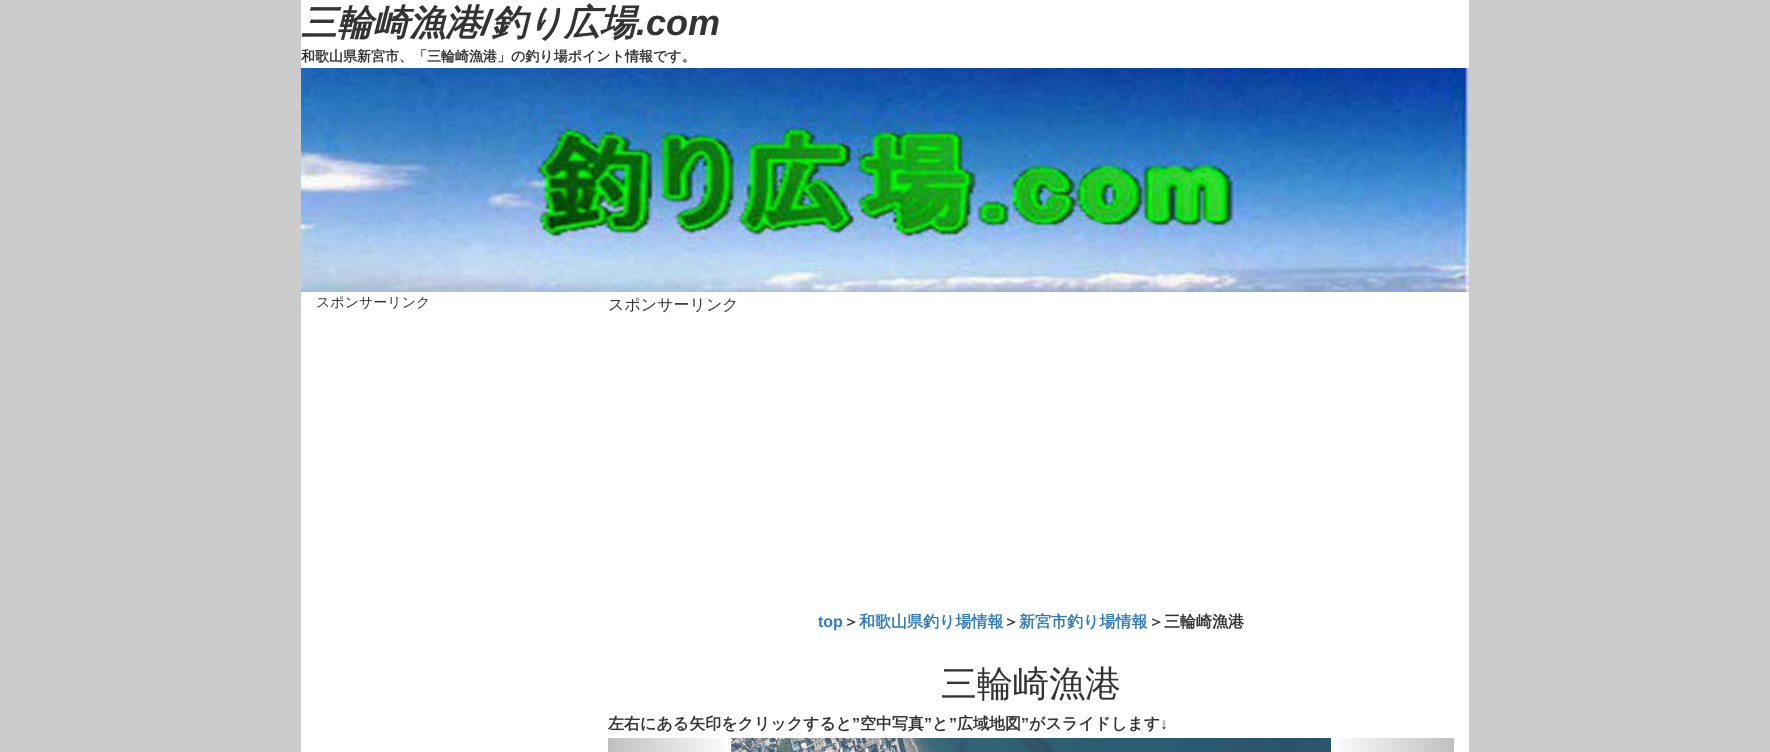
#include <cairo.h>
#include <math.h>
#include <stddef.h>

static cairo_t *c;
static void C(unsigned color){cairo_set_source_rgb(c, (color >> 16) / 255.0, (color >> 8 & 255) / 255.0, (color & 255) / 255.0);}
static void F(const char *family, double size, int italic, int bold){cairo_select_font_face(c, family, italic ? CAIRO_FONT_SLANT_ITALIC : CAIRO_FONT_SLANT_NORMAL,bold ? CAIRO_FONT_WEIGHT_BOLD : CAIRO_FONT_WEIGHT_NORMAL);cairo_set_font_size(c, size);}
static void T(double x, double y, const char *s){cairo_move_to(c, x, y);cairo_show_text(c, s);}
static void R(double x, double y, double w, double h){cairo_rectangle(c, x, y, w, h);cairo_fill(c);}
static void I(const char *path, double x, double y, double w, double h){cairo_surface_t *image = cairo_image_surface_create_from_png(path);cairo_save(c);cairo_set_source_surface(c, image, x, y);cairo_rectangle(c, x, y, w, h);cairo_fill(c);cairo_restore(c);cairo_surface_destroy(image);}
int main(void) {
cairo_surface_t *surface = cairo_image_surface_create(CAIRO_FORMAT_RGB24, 1770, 752);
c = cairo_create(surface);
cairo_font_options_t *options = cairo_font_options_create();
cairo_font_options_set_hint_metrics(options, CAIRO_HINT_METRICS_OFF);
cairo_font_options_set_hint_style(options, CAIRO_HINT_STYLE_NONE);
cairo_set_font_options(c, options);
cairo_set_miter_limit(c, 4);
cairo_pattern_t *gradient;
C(0xcccccc);
cairo_paint(c);
C(0xffffff);
R(301,0,1168,68);
F("WenQuanYi Zen Hei",36,1,1);
C(0x333333);
T(301,35,"三輪崎漁港");
F("Liberation Sans",36,1,1);
T(481,35,"/");
F("WenQuanYi Zen Hei",36,1,1);
T(491,35,"釣り広場");
F("Liberation Sans",36,1,1);
T(636,35,".com");
F("WenQuanYi Zen Hei",14,0,1);
T(301,61,"和歌山県新宮市、「三輪崎漁港」の釣り場ポイント情報です。");
I("1.png",301,68,1168,224);
C(0xffffff);
R(301,292,1168,460);
F("WenQuanYi Zen Hei Medium",14,0,0);
C(0x333333);
T(316,307,"スポンサーリンク");
F("WenQuanYi Zen Hei Medium",16,0,0);
T(608,310,"スポンサーリンク");
F("Liberation Sans",16,0,1);
C(0x337ab7);
T(818,627,"top");
F("WenQuanYi Zen Hei",16,0,1);
C(0x333333);
T(843,627,"＞");
C(0x337ab7);
T(859,627,"和歌山県釣り場情報");
C(0x333333);
T(1003,627,"＞");
C(0x337ab7);
T(1019,627,"新宮市釣り場情報");
C(0x333333);
T(1148,627,"＞三輪崎漁港");
F("WenQuanYi Zen Hei Medium",36,0,0);
T(941,696,"三輪崎漁港");
F("WenQuanYi Zen Hei",16,0,1);
T(608,729,"左右にある矢印をクリックすると");
F("Liberation Sans",16,0,1);
T(852,729,"”");
F("WenQuanYi Zen Hei",16,0,1);
T(860,729,"空中写真");
F("Liberation Sans",16,0,1);
T(924,729,"”");
F("WenQuanYi Zen Hei",16,0,1);
T(932,729,"と");
F("Liberation Sans",16,0,1);
T(949,729,"”");
F("WenQuanYi Zen Hei",16,0,1);
T(957,729,"広域地図");
F("Liberation Sans",16,0,1);
T(1021,729,"”");
F("WenQuanYi Zen Hei",16,0,1);
T(1029,729,"がスライドします");
F("Liberation Sans",16,0,1);
T(1160,729,"↓");
gradient = cairo_pattern_create_linear(608,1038,735,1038);
cairo_pattern_add_color_stop_rgba(gradient,0,0,0,0,.25);
cairo_pattern_add_color_stop_rgba(gradient,1,0,0,0,0);
cairo_set_source(c,gradient);
cairo_pattern_destroy(gradient);
R(608,738,116,14);
I("2.png",731,738,600,14);
gradient = cairo_pattern_create_linear(1327,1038,1454,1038);
cairo_pattern_add_color_stop_rgba(gradient,0,0,0,0,0);
cairo_pattern_add_color_stop_rgba(gradient,1,0,0,0,.25);
cairo_set_source(c,gradient);
cairo_pattern_destroy(gradient);
R(1338,738,116,14);
cairo_surface_write_to_png(surface, "o.png");
cairo_font_options_destroy(options);
cairo_destroy(c);
cairo_surface_destroy(surface);
return 0;
}
